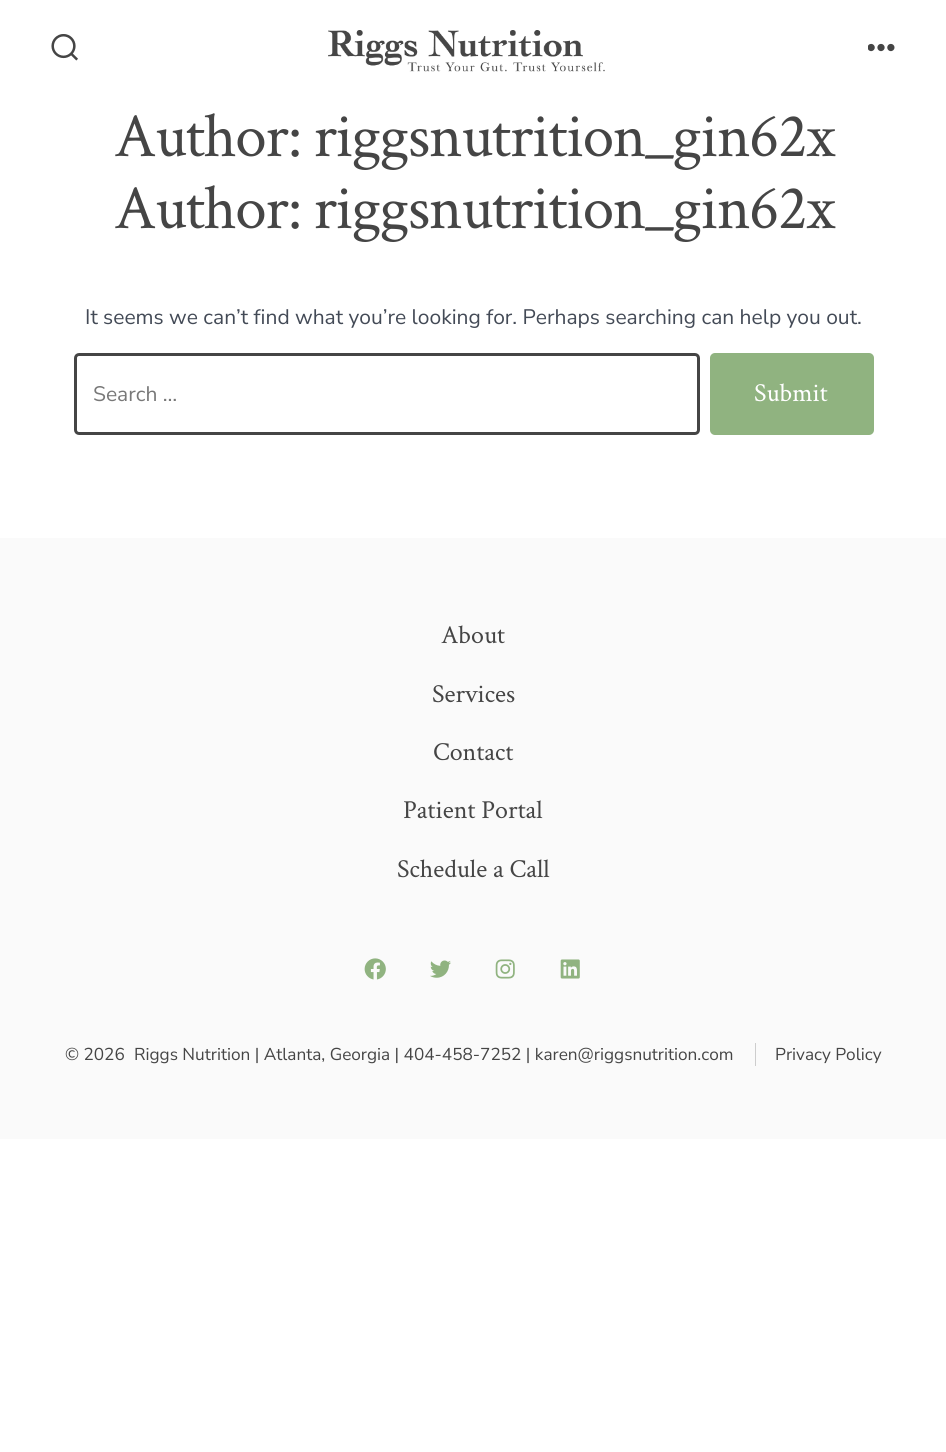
#include <cairo.h>
#include <math.h>
#include <stddef.h>

static cairo_t *c;
static void C(unsigned color){cairo_set_source_rgb(c, (color >> 16) / 255.0, (color >> 8 & 255) / 255.0, (color & 255) / 255.0);}
static void F(const char *family, double size, int italic, int bold){cairo_select_font_face(c, family, italic ? CAIRO_FONT_SLANT_ITALIC : CAIRO_FONT_SLANT_NORMAL,bold ? CAIRO_FONT_WEIGHT_BOLD : CAIRO_FONT_WEIGHT_NORMAL);cairo_set_font_size(c, size);}
static void T(double x, double y, const char *s){cairo_move_to(c, x, y);cairo_show_text(c, s);}
static void L(double x, double y, const char *s, double letter, double word){cairo_move_to(c, x, y);while (*s) {char ch[5] = {0};int n = 0;do ch[n++] = *s++; while ((*s & 0xC0) == 0x80);cairo_show_text(c, ch);cairo_rel_move_to(c, letter + word * (*ch == ' '), 0);}}
static void R(double x, double y, double w, double h){cairo_rectangle(c, x, y, w, h);cairo_fill(c);}
static void Q(double x, double y, double w, double h, double r){cairo_new_sub_path(c);cairo_arc(c, x + w - r, y + h - r, r, 0, M_PI / 2);cairo_arc(c, x + r, y + h - r, r, M_PI / 2, M_PI);cairo_arc(c, x + r, y + r, r, M_PI, 1.5 * M_PI);cairo_arc(c, x + w - r, y + r, r, 1.5 * M_PI, 2 * M_PI);cairo_close_path(c);}
static void I(const char *path, double x, double y, double w, double h){cairo_surface_t *image = cairo_image_surface_create_from_png(path);cairo_save(c);cairo_set_source_surface(c, image, x, y);cairo_rectangle(c, x, y, w, h);cairo_fill(c);cairo_restore(c);cairo_surface_destroy(image);}
int main(void) {
cairo_surface_t *surface = cairo_image_surface_create(CAIRO_FORMAT_RGB24, 946, 1452);
c = cairo_create(surface);
cairo_font_options_t *options = cairo_font_options_create();
cairo_font_options_set_hint_metrics(options, CAIRO_HINT_METRICS_OFF);
cairo_font_options_set_hint_style(options, CAIRO_HINT_STYLE_NONE);
cairo_set_font_options(c, options);
cairo_set_miter_limit(c, 4);
C(0xffffff);
cairo_paint(c);
I("1.png",51,34,27,27);
I("2.png",328,30,277,42);
I("3.png",868,43,27,9);
F("Crimson Text",63.2,0,0);
C(0x454545);
L(114,156,"Author: riggsnutrition_gin62x",-1.25,0);
L(114,228,"Author: riggsnutrition_gin62x",-1.25,0);
F("Nunito Sans",21,0,0);
C(0x434a56);
T(85,324,"It seems we can’t find what you’re looking for. Perhaps searching can help you out.");
Q(75.5,354.5,623,79,3.5);
C(0x454545);
cairo_set_line_width(c,3);
cairo_stroke(c);
C(0x787878);
T(93,401,"Search …");
C(0x90b380);
Q(710,353,164,82,5);
cairo_fill(c);
F("Crimson Text",26,0,0);
C(0xffffff);
T(754,401,"Submit");
C(0xfafafa);
R(0,538,946,601);
C(0x454545);
T(441,643,"About");
T(432,702,"Services");
T(433,760,"Contact");
T(403,818,"Patient Portal");
T(397,877,"Schedule a Call");
I("4.png",364,958,22,22);
I("5.png",430,960,21,18);
I("6.png",495,959,20,20);
I("7.png",560,959,20,20);
F("Nunito Sans",17.2,0,0);
T(65,1060,"© 2026");
T(134,1060,"Riggs Nutrition | Atlanta, Georgia | 404-458-7252 | karen@riggsnutrition.com");
C(0xcdcdcd);
R(755,1043,1,23);
C(0x454545);
T(775,1060,"Privacy Policy");
cairo_surface_write_to_png(surface, "o.png");
cairo_font_options_destroy(options);
cairo_destroy(c);
cairo_surface_destroy(surface);
return 0;
}
